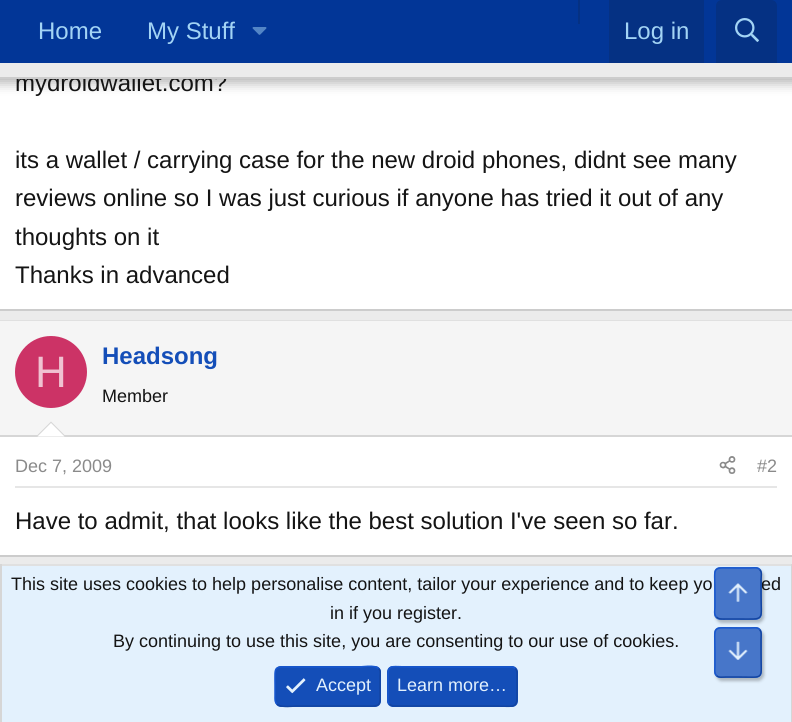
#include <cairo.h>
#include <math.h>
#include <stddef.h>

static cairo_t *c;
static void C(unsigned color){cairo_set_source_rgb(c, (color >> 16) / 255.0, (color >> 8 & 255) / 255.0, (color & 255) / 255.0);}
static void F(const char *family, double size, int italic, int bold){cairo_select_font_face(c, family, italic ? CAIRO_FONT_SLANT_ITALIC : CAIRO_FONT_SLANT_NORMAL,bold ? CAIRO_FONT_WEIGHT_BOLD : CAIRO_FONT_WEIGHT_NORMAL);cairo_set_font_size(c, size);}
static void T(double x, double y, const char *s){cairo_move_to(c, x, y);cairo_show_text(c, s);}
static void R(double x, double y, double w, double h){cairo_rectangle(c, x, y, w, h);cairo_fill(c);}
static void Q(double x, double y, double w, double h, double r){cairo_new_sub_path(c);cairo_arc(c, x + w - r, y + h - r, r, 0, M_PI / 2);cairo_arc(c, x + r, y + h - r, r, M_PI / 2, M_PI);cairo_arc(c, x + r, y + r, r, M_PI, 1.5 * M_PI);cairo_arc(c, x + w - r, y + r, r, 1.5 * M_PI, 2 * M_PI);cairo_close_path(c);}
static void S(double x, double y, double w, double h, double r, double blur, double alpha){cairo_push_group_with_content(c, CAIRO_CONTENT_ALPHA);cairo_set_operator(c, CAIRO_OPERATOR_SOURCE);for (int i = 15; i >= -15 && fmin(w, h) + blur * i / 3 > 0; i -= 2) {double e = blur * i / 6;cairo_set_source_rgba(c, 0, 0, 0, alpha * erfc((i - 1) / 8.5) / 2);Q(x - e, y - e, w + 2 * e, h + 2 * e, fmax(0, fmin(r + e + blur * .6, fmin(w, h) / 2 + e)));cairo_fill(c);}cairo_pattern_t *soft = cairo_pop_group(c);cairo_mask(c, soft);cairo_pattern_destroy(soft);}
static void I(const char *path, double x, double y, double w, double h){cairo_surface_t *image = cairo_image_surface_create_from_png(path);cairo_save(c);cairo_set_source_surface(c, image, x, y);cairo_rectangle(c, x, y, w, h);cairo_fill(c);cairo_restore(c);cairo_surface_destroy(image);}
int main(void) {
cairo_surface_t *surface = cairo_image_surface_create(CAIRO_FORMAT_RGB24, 792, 722);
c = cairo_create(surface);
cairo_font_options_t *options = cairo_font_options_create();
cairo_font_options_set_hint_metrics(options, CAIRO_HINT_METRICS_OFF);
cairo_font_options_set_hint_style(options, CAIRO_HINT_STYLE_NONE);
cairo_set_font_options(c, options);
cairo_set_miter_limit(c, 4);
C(0xebebeb);
cairo_paint(c);
C(0xffffff);
R(0,79,792,230);
C(0x000000);
S(-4,-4,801,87,0,6,.3);
C(0x023697);
R(0,0,792,63);
F("Liberation Sans",24,0,0);
C(0xa3d4f5);
T(38,39,"Home");
T(147,39,"My Stuff");
I("1.png",252,27,15,8);
C(0x053183);
R(578,0,2,24);
R(609,0,95,63);
C(0xa3d4f5);
T(624,39,"Log in");
C(0x053183);
cairo_new_path(c);
cairo_move_to(c,722,0);
cairo_line_to(c,771,0);
cairo_curve_to(c,774.5,0,777,2.5,777,6);
cairo_line_to(c,777,63);
cairo_line_to(c,716,63);
cairo_line_to(c,716,6);
cairo_curve_to(c,716,2.5,718.5,0,722,0);
cairo_close_path(c);
cairo_fill(c);
I("2.png",735,18,24,24);
C(0x141414);
T(15,91,"mydroidwallet.com?");
C(0xebebeb);
R(0,63,792,14);
C(0xcccccc);
R(0,77,792,2);
R(0,309,792,2);
C(0x141414);
T(15,168,"its a wallet / carrying case for the new droid phones, didnt see many");
T(15,206,"reviews online so I was just curious if anyone has tried it out of any");
T(15,245,"thoughts on it");
T(15,283,"Thanks in advanced");
C(0xffffff);
R(0,437,792,118);
C(0xe0e0e0);
R(0,320,792,1);
C(0xcccccc);
R(0,555,792,2);
C(0xf5f5f5);
R(0,321,792,114);
C(0xd6d6d6);
R(0,435,792,2);
C(0xcc3366);
cairo_new_path(c);
cairo_arc(c,51,372,36,0,2 * M_PI);
cairo_fill(c);
F("Liberation Sans",44,0,0);
C(0xf0c2d1);
T(35,387,"H");
F("Liberation Sans",24,0,1);
C(0x144eb8);
T(102,364,"Headsong");
F("Liberation Sans",18,0,0);
C(0x141414);
T(102,402,"Member");
C(0xd6d6d6);
cairo_new_path(c);
cairo_move_to(c,66,436.5);
cairo_line_to(c,36,436.5);
cairo_line_to(c,51,421.5);
cairo_close_path(c);
cairo_fill(c);
C(0xffffff);
cairo_new_path(c);
cairo_move_to(c,64.5,436.5);
cairo_line_to(c,37.5,436.5);
cairo_line_to(c,51,423);
cairo_close_path(c);
cairo_fill(c);
C(0xe6e6e6);
R(15,486,762,2);
C(0x8a8a8a);
T(15,472,"Dec 7, 2009");
I("3.png",719,456,17,18);
T(757,472,"#2");
F("Liberation Sans",24,0,0);
C(0x141414);
T(15,529,"Have to admit, that looks like the best solution I've seen so far.");
C(0xe3f1fd);
R(2,566,789,156);
C(0xe0e0e0);
R(0,564,792,2);
cairo_save(c);
cairo_set_fill_rule(c,CAIRO_FILL_RULE_EVEN_ODD);
cairo_new_path(c);
cairo_move_to(c,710,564);
cairo_line_to(c,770,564);
cairo_line_to(c,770,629);
cairo_line_to(c,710,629);
cairo_close_path(c);
cairo_move_to(c,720,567);
cairo_line_to(c,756,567);
cairo_curve_to(c,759.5,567,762,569.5,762,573);
cairo_line_to(c,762,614);
cairo_curve_to(c,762,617.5,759.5,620,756,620);
cairo_line_to(c,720,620);
cairo_curve_to(c,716.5,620,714,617.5,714,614);
cairo_line_to(c,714,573);
cairo_curve_to(c,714,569.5,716.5,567,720,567);
cairo_close_path(c);
cairo_clip(c);
C(0x000000);
S(716,570,48,53,6,1.5,.25);
cairo_restore(c);
F("Liberation Sans",18,0,0);
C(0x141414);
T(761,590,"ed");
cairo_set_source_rgba(c,0.078,0.306,0.722,0.75);
Q(714,567,48,53,6);
cairo_fill(c);
cairo_new_path(c);
cairo_move_to(c,759.5,569.5);
cairo_curve_to(c,762.5,572,761,577,761,580);
cairo_line_to(c,761,593);
cairo_curve_to(c,761,622,766,619,738,619);
cairo_line_to(c,726,619);
cairo_curve_to(c,723,619,718.5,619.5,716.5,617);
C(0x1244a1);
cairo_set_line_width(c,1.5);
cairo_stroke(c);
cairo_new_path(c);
cairo_move_to(c,716.5,617);
cairo_curve_to(c,713.5,614.5,715,609.5,715,607);
cairo_line_to(c,715,593);
cairo_curve_to(c,715,564.5,710,568,738,568);
cairo_line_to(c,750,568);
cairo_curve_to(c,753,568,757.5,567,759.5,569.5);
C(0x1757cf);
cairo_stroke(c);
I("4.png",728,583,20,19);
cairo_save(c);
cairo_set_fill_rule(c,CAIRO_FILL_RULE_EVEN_ODD);
cairo_new_path(c);
cairo_move_to(c,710,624);
cairo_line_to(c,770,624);
cairo_line_to(c,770,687);
cairo_line_to(c,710,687);
cairo_close_path(c);
cairo_move_to(c,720,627);
cairo_line_to(c,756,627);
cairo_curve_to(c,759.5,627,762,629.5,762,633);
cairo_line_to(c,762,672);
cairo_curve_to(c,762,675.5,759.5,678,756,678);
cairo_line_to(c,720,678);
cairo_curve_to(c,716.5,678,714,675.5,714,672);
cairo_line_to(c,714,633);
cairo_curve_to(c,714,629.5,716.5,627,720,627);
cairo_close_path(c);
cairo_clip(c);
C(0x000000);
S(716,630,48,51,6,1.5,.25);
cairo_restore(c);
cairo_set_source_rgba(c,0.078,0.306,0.722,0.75);
Q(714,627,48,51,6);
cairo_fill(c);
cairo_new_path(c);
cairo_move_to(c,759.5,629.5);
cairo_curve_to(c,762,632,761,636.5,761,639.5);
cairo_line_to(c,761,652.5);
cairo_curve_to(c,761,681,765.5,677,738,677);
cairo_line_to(c,726,677);
cairo_curve_to(c,723,677,718.5,678,716.5,675.5);
C(0x1244a1);
cairo_stroke(c);
cairo_new_path(c);
cairo_move_to(c,716.5,675.5);
cairo_curve_to(c,714,673,715,668.5,715,665.5);
cairo_line_to(c,715,652.5);
cairo_curve_to(c,715,624,710.5,628,738,628);
cairo_line_to(c,750,628);
cairo_curve_to(c,753,628,757.5,627,759.5,629.5);
C(0x1757cf);
cairo_stroke(c);
I("5.png",728,641,20,19);
C(0xd6d6d6);
R(791,564,1,158);
R(0,564,2,158);
C(0x141414);
T(11,590,"This site uses cookies to help personalise content, tailor your experience and to keep yo");
T(330,619,"in if you register.");
T(113,647,"By continuing to use this site, you are consenting to our use of cookies.");
C(0x144eb8);
Q(275,666,106,41,6);
cairo_fill(c);
cairo_new_path(c);
cairo_move_to(c,378.5,668.5);
cairo_curve_to(c,381,670.5,380,674,380,677);
cairo_line_to(c,380,686);
cairo_curve_to(c,380,708.5,383,706,359,706);
cairo_line_to(c,296,706);
cairo_curve_to(c,294.5,706,280.5,708,277,704);
C(0x1244a1);
cairo_stroke(c);
cairo_new_path(c);
cairo_move_to(c,277,704);
cairo_curve_to(c,274.5,702,275,698.5,275,696);
cairo_line_to(c,275,686);
cairo_curve_to(c,275,664,272.5,667,296,667);
cairo_line_to(c,359,667);
cairo_curve_to(c,361,667,375,664.5,378.5,668.5);
C(0x1757cf);
cairo_stroke(c);
I("6.png",286,678,20,16);
C(0xe3f1fd);
T(316,691,"Accept");
C(0x144eb8);
Q(387,666,131,41,6);
cairo_fill(c);
cairo_new_path(c);
cairo_move_to(c,515,668.5);
cairo_curve_to(c,517.5,670.5,517,674,517,677);
cairo_line_to(c,517,686);
cairo_curve_to(c,517,710.5,518.5,706,492,706);
cairo_line_to(c,393,706);
cairo_curve_to(c,391.5,705.5,390.5,705,389.5,704);
C(0x1244a1);
cairo_stroke(c);
cairo_new_path(c);
cairo_move_to(c,389.5,704);
cairo_curve_to(c,387,702,388,698.5,388,696);
cairo_line_to(c,388,686);
cairo_curve_to(c,388,662,386,667,413,667);
cairo_line_to(c,511.5,667);
cairo_curve_to(c,513,667,514,667.5,515,668.5);
C(0x1757cf);
cairo_stroke(c);
C(0xe3f1fd);
T(397,691,"Learn more…");
cairo_surface_write_to_png(surface, "o.png");
cairo_font_options_destroy(options);
cairo_destroy(c);
cairo_surface_destroy(surface);
return 0;
}
